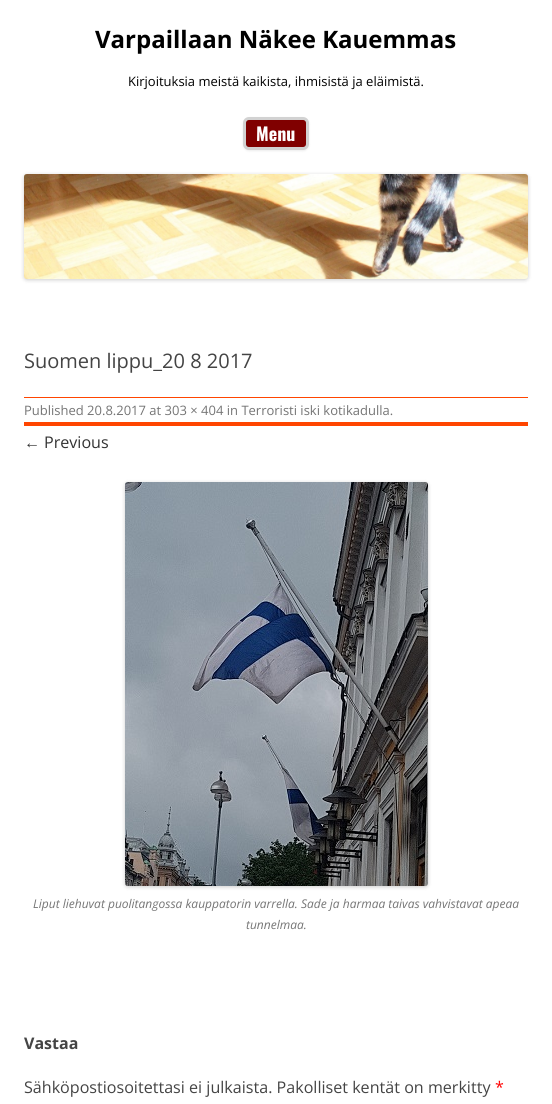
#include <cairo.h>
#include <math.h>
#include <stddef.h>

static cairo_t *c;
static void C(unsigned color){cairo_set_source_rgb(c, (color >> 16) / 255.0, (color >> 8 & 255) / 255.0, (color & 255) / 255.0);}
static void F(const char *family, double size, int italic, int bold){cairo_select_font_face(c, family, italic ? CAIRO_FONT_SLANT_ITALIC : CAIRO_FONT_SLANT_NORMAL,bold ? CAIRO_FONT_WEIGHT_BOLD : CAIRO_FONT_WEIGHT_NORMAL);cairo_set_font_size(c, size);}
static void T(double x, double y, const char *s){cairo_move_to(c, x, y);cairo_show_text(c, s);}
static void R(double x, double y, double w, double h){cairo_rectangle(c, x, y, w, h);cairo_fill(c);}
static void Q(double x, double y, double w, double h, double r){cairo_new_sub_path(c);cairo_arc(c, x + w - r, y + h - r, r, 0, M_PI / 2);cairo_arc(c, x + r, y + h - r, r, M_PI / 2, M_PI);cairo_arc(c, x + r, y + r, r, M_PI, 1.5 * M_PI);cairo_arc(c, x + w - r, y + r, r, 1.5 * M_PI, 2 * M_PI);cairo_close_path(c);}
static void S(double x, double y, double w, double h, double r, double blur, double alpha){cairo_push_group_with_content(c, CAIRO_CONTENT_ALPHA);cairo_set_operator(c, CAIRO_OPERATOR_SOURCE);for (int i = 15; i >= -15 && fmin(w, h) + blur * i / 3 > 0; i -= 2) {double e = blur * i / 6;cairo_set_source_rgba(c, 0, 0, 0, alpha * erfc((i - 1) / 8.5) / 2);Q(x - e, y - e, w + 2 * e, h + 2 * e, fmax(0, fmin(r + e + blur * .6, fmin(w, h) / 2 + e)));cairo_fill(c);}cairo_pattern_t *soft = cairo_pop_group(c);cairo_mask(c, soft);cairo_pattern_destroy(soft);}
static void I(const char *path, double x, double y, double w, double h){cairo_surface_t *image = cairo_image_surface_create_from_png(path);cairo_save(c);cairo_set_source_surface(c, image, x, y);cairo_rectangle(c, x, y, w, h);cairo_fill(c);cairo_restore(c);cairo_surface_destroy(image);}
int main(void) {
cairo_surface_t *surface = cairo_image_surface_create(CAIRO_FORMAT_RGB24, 552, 1104);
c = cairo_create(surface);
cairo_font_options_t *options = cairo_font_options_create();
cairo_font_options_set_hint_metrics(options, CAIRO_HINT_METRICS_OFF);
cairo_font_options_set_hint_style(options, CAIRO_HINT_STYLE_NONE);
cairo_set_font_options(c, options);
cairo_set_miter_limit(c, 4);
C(0xffffff);
cairo_paint(c);
F("Open Sans",24,0,1);
C(0x000000);
T(95,48,"Varpaillaan Näkee Kauemmas");
F("Open Sans",13,0,0);
T(128,86,"Kirjoituksia meistä kaikista, ihmisistä ja eläimistä.");
C(0x404040);
S(243,118,66,33,6,1,.1);
C(0x800000);
Q(244.5,118.5,63,30,4.5);
cairo_fill_preserve(c);
C(0xd2d2d2);
cairo_set_line_width(c,3);
cairo_stroke(c);
F("Oswald",18,0,1);
C(0xffffff);
T(256,141,"Menu");
C(0x000000);
S(24,175,504,105,3,2,.2);
I("1.png",24,174,504,105);
F("Open Sans",20,0,0);
C(0x444444);
T(24,368,"Suomen lippu_20 8 2017");
C(0xff4500);
R(24,397,504,1);
R(24,422,504,4);
F("Open Sans",13,0,0);
C(0x757575);
T(24,415,"Published 20.8.2017 at 303 × 404 in Terroristi iski kotikadulla.");
F("Liberation Sans",16.1,0,0);
C(0x333333);
T(24,448,"←");
F("Open Sans",16.1,0,0);
T(44,448,"Previous");
C(0x000000);
S(125,483,303,404,3,2,.2);
I("2.png",125,482,303,404);
F("Open Sans",12,1,0);
C(0x757575);
T(33,908,"Liput liehuvat puolitangossa kauppatorin varrella. Sade ja harmaa taivas vahvistavat apeaa");
T(246,929,"tunnelmaa.");
F("Open Sans",16,0,1);
C(0x444444);
T(24,1049,"Vastaa");
F("Open Sans",16.1,0,0);
T(24,1093,"Sähköpostiosoitettasi ei julkaista. Pakolliset kentät on merkitty");
C(0xff0000);
T(495,1093,"*");
cairo_surface_write_to_png(surface, "o.png");
cairo_font_options_destroy(options);
cairo_destroy(c);
cairo_surface_destroy(surface);
return 0;
}
